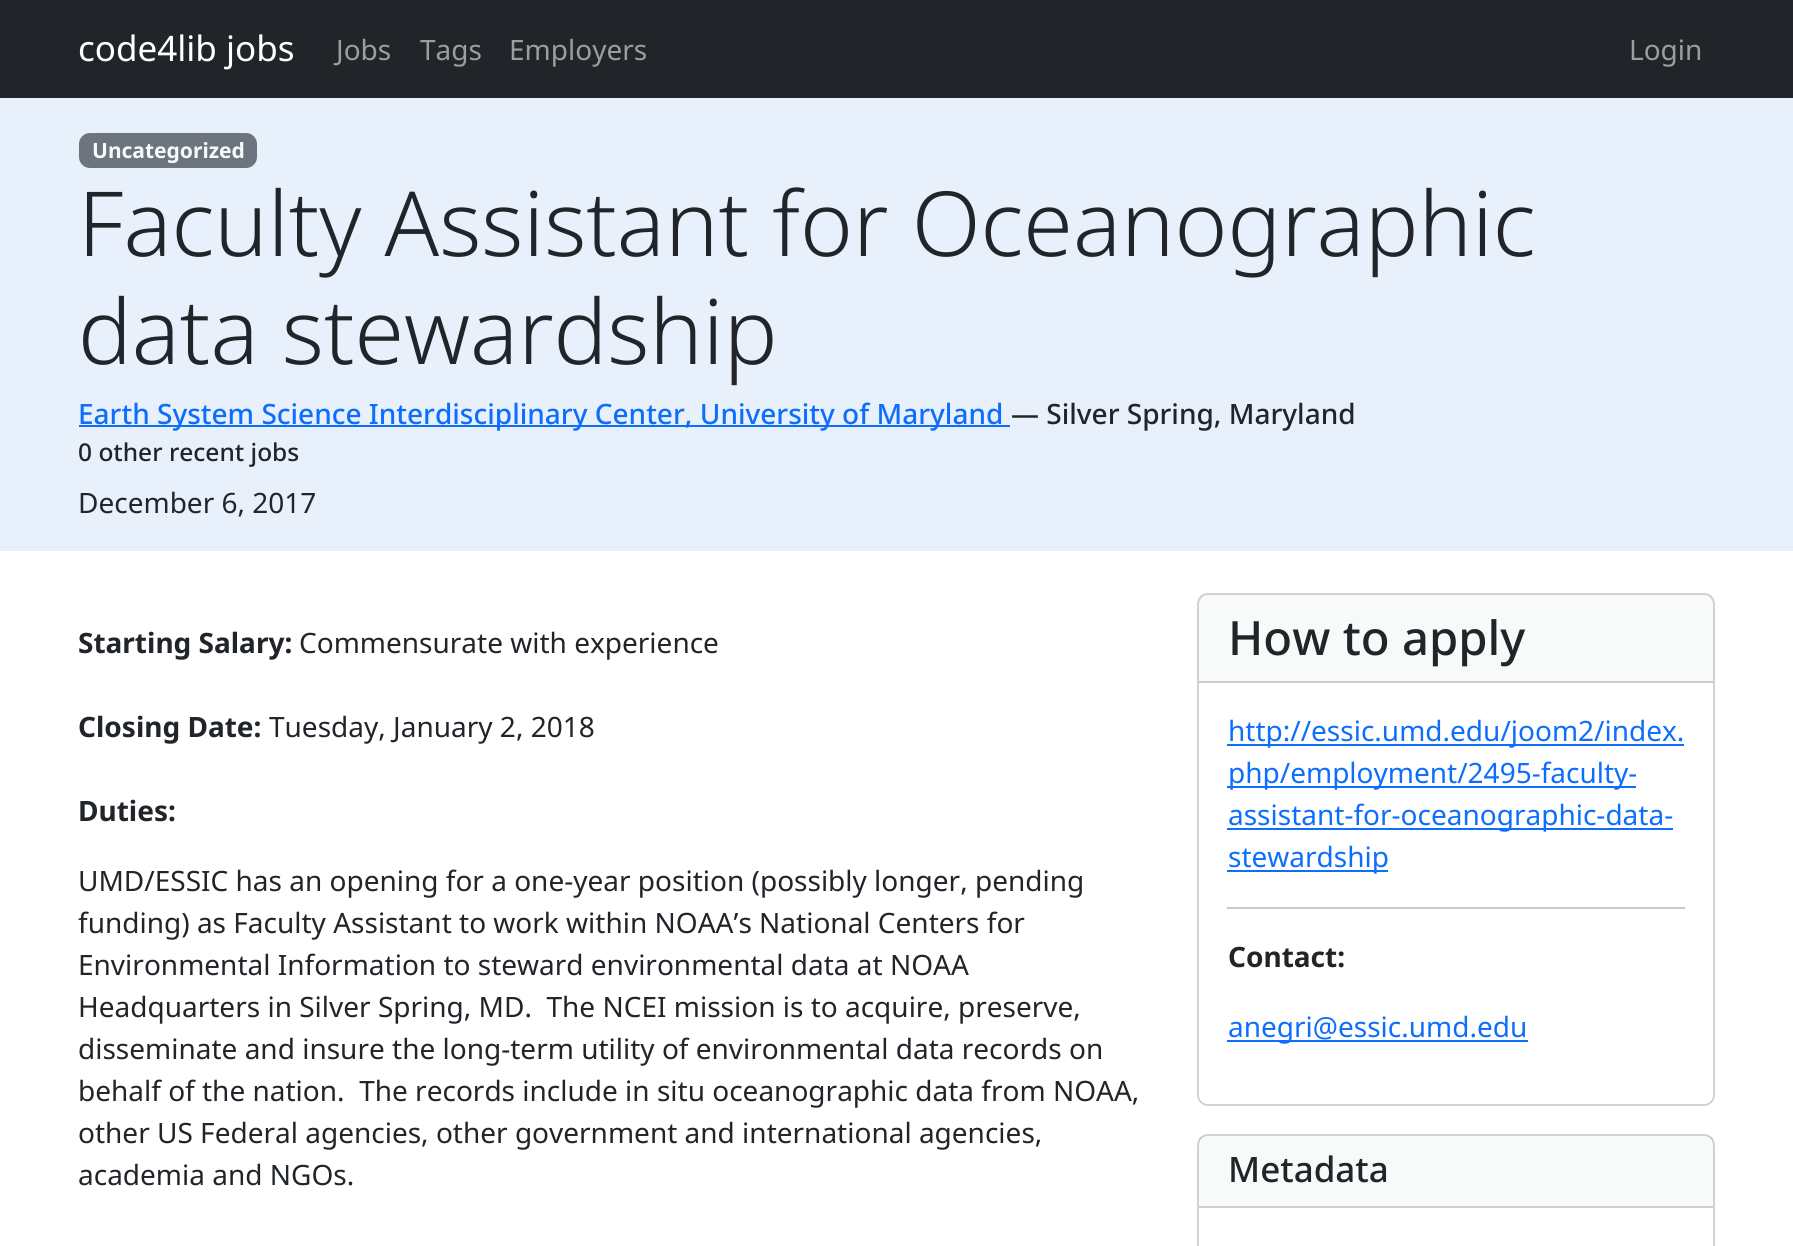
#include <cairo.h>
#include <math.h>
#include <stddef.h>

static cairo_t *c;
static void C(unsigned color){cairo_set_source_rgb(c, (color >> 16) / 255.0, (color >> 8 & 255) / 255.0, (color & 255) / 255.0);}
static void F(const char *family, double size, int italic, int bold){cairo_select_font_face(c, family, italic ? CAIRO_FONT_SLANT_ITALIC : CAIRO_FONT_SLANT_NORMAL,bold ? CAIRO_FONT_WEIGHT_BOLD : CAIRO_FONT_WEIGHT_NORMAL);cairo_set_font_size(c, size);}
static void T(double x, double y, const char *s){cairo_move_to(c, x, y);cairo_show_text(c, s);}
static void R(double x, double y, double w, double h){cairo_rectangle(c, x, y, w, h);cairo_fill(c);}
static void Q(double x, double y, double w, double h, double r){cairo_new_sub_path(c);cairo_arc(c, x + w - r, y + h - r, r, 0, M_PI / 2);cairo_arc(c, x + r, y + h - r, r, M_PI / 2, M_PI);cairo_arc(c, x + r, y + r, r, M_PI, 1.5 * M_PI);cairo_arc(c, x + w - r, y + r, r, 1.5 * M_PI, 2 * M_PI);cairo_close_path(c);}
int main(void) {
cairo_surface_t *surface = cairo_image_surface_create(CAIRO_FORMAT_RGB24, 1793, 1246);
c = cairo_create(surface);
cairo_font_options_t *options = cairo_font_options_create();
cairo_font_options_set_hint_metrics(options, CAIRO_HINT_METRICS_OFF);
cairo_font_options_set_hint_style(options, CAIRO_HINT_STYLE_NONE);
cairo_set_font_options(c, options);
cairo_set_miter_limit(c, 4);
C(0xffffff);
cairo_paint(c);
C(0x212529);
R(0,0,1793,98);
F("Noto Sans",35,0,0);
C(0xffffff);
T(78,61,"code4lib jobs");
F("Noto Sans",28,0,0);
C(0x9b9d9f);
T(336,60,"Jobs");
T(420,60,"Tags");
T(509,60,"Employers");
T(1629,60,"Login");
C(0xe8f0fb);
R(0,98,1793,453);
C(0x6c757d);
Q(79,133,178,35,11);
cairo_fill(c);
F("Noto Sans",21,0,1);
C(0xf8f9fa);
T(92,158,"Uncategorized");
F("Noto Sans Light",89.75,0,0);
C(0x212529);
T(78,256,"Faculty Assistant for Oceanographic");
T(78,364,"data stewardship");
C(0x0d6efd);
R(79,425,931,2);
F("Noto Sans Medium",28,0,0);
T(78,424,"Earth System Science Interdisciplinary Center, University of Maryland");
C(0x212529);
T(1011,424,"— Silver Spring, Maryland");
F("Noto Sans Medium",24.5,0,0);
T(78,461,"0 other recent jobs");
F("Noto Sans",28,0,0);
T(78,513,"December 6, 2017");
F("Noto Sans",28,0,1);
T(78,653,"Starting Salary:");
F("Noto Sans",28,0,0);
T(299,653,"Commensurate with experience");
F("Noto Sans",28,0,1);
T(78,737,"Closing Date:");
F("Noto Sans",28,0,0);
T(269,737,"Tuesday, January 2, 2018");
F("Noto Sans",28,0,1);
T(78,821,"Duties:");
F("Noto Sans",28,0,0);
T(78,891,"UMD/ESSIC has an opening for a one-year position (possibly longer, pending");
T(78,933,"funding) as Faculty Assistant to work within NOAA’s National Centers for");
T(78,975,"Environmental Information to steward environmental data at NOAA");
T(78,1017,"Headquarters in Silver Spring, MD.  The NCEI mission is to acquire, preserve,");
T(78,1059,"disseminate and insure the long-term utility of environmental data records on");
T(78,1101,"behalf of the nation.  The records include in situ oceanographic data from NOAA,");
T(78,1143,"other US Federal agencies, other government and international agencies,");
T(78,1185,"academia and NGOs.");
Q(1198,594,516,511,10);
C(0xd2d2d2);
cairo_stroke(c);
cairo_set_source_rgba(c,0.129,0.145,0.161,0.03);
R(1199,595,514,86);
C(0xcdcdcd);
R(1199,681,514,2);
F("Noto Sans Medium",47.25,0,0);
C(0x212529);
T(1228,655,"How to apply");
C(0x0d6efd);
R(1227,744,457,2);
F("Noto Sans",28,0,0);
T(1228,741,"http://essic.umd.edu/joom2/index.");
R(1227,786,409,2);
T(1228,783,"php/employment/2495-faculty-");
R(1227,828,446,2);
T(1228,825,"assistant-for-oceanographic-data-");
R(1227,870,161,2);
T(1228,867,"stewardship");
C(0xc8c9ca);
R(1227,907,458,2);
F("Noto Sans",28,0,1);
C(0x212529);
T(1228,967,"Contact:");
C(0x0d6efd);
R(1227,1040,301,2);
F("Noto Sans",28,0,0);
T(1228,1037,"anegri@essic.umd.edu");
Q(1198,1135,516,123,10);
C(0xd2d2d2);
cairo_stroke(c);
cairo_set_source_rgba(c,0.129,0.145,0.161,0.03);
R(1199,1136,514,70);
C(0xcdcdcd);
R(1199,1206,514,2);
F("Noto Sans Medium",35,0,0);
C(0x212529);
T(1228,1182,"Metadata");
cairo_surface_write_to_png(surface, "o.png");
cairo_font_options_destroy(options);
cairo_destroy(c);
cairo_surface_destroy(surface);
return 0;
}
